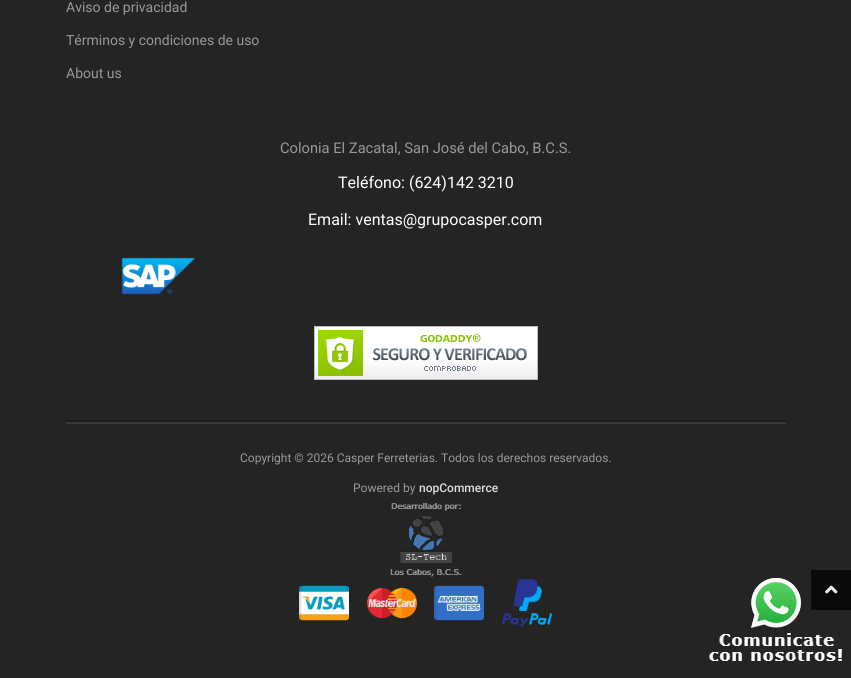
#include <cairo.h>
#include <math.h>
#include <stddef.h>

static cairo_t *c;
static void C(unsigned color){cairo_set_source_rgb(c, (color >> 16) / 255.0, (color >> 8 & 255) / 255.0, (color & 255) / 255.0);}
static void F(const char *family, double size, int italic, int bold){cairo_select_font_face(c, family, italic ? CAIRO_FONT_SLANT_ITALIC : CAIRO_FONT_SLANT_NORMAL,bold ? CAIRO_FONT_WEIGHT_BOLD : CAIRO_FONT_WEIGHT_NORMAL);cairo_set_font_size(c, size);}
static void T(double x, double y, const char *s){cairo_move_to(c, x, y);cairo_show_text(c, s);}
static void R(double x, double y, double w, double h){cairo_rectangle(c, x, y, w, h);cairo_fill(c);}
static void I(const char *path, double x, double y, double w, double h){cairo_surface_t *image = cairo_image_surface_create_from_png(path);cairo_save(c);cairo_set_source_surface(c, image, x, y);cairo_rectangle(c, x, y, w, h);cairo_fill(c);cairo_restore(c);cairo_surface_destroy(image);}
int main(void) {
cairo_surface_t *surface = cairo_image_surface_create(CAIRO_FORMAT_RGB24, 851, 678);
c = cairo_create(surface);
cairo_font_options_t *options = cairo_font_options_create();
cairo_font_options_set_hint_metrics(options, CAIRO_HINT_METRICS_OFF);
cairo_font_options_set_hint_style(options, CAIRO_HINT_STYLE_NONE);
cairo_set_font_options(c, options);
cairo_set_miter_limit(c, 4);
C(0x242424);
cairo_paint(c);
C(0x1d1d1d);
R(66,420,720,2);
F("Roboto",14,0,0);
C(0x999999);
T(66,12,"Aviso de privacidad");
T(66,45,"Términos y condiciones de uso");
T(66,78,"About us");
F("Roboto",14.7,0,0);
T(280,153,"Colonia El Zacatal, San José del Cabo, B.C.S.");
F("Roboto",16,0,0);
C(0xffffff);
T(338,188,"Teléfono: (624)142 3210");
T(308,225,"Email: ventas@grupocasper.com");
I("1.png",121,257,74,38);
I("2.png",314,326,224,54);
C(0x3a3a3a);
R(66,422,720,2);
F("Roboto",12,0,0);
C(0x999999);
T(240,462,"Copyright © 2026 Casper Ferreterias. Todos los derechos reservados.");
T(353,492,"Powered by");
F("Roboto Medium",12,0,0);
C(0xe1e1e1);
T(419,492,"nopCommerce");
I("3.png",390,503,72,74);
I("4.png",299,585,50,36);
I("5.png",367,587,50,32);
I("6.png",434,585,50,36);
I("7.png",502,578,50,50);
I("9.png",709,578,133,83);
C(0x0a0a0a);
R(811,570,40,40);
I("8.png",825,585,13,9);
cairo_surface_write_to_png(surface, "o.png");
cairo_font_options_destroy(options);
cairo_destroy(c);
cairo_surface_destroy(surface);
return 0;
}
